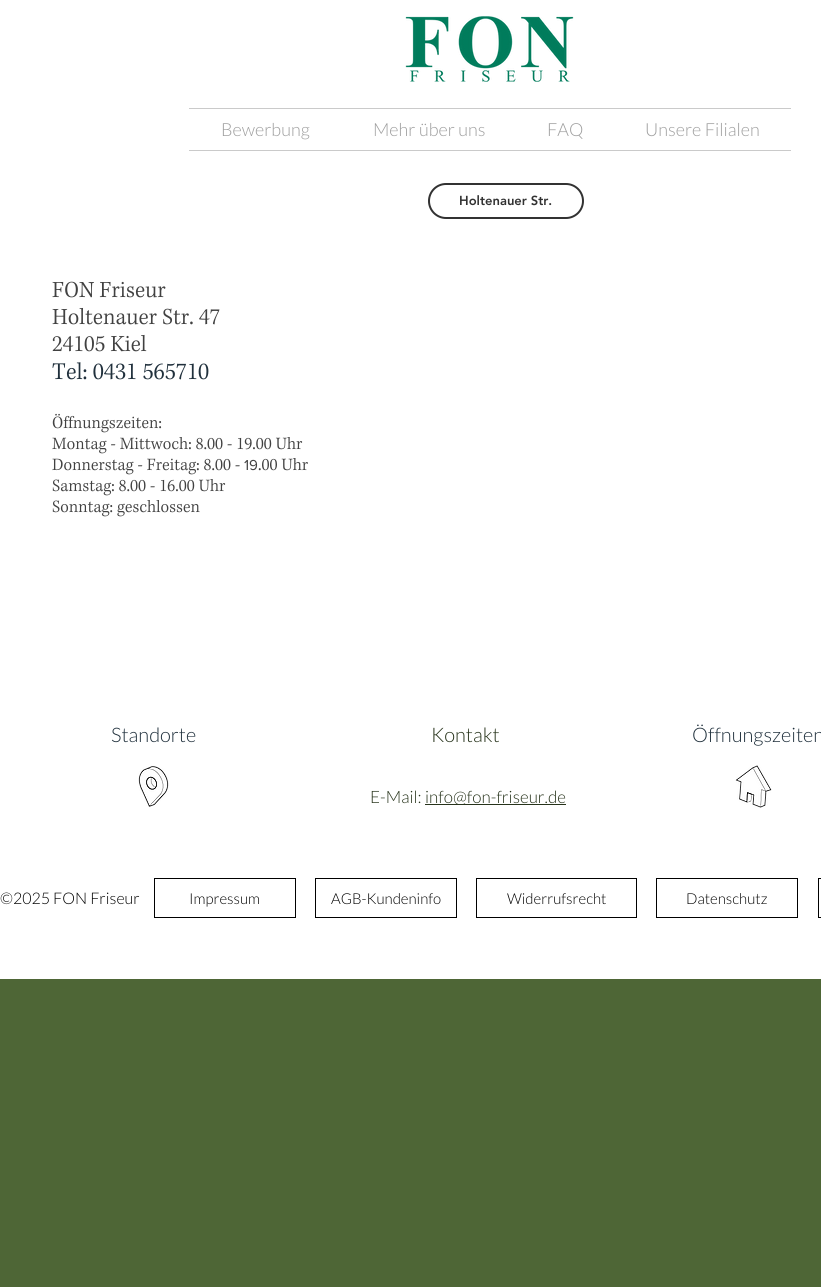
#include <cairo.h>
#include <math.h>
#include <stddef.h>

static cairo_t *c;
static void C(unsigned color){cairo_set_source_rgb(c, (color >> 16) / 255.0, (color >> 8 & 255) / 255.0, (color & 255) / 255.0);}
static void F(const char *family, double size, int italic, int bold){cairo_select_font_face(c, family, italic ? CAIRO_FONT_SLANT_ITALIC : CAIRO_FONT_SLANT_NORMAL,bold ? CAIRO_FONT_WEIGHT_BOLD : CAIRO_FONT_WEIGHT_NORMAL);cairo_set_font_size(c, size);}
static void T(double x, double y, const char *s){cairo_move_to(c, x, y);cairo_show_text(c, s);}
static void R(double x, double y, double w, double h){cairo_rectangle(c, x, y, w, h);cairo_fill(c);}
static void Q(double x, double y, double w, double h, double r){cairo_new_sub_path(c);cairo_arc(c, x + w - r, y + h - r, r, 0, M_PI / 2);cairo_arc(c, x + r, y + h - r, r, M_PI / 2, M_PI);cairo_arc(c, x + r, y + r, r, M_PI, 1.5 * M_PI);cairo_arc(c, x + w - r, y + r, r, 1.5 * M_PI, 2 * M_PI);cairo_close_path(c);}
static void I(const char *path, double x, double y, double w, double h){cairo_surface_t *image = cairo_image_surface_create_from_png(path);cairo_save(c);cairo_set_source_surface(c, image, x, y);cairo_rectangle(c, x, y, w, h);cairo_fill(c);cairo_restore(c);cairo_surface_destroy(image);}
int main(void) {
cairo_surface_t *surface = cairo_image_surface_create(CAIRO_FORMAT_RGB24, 821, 1287);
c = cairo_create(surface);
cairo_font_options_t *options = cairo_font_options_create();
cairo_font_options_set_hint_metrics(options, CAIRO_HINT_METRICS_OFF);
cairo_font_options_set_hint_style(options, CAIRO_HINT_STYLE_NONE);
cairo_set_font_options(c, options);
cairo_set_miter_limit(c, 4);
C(0x4e6636);
cairo_paint(c);
C(0xffffff);
R(0,0,821,979);
I("1.png",405,16,169,66);
C(0xcacaca);
R(189,108,602,1);
R(189,150,602,1);
F("Lato Light",18,0,0);
C(0x9e9e9e);
T(221,136,"Bewerbung");
T(373,136,"Mehr über uns");
T(547,136,"FAQ");
T(645,136,"Unsere Filialen");
Q(429,184,154,34,17);
C(0x323232);
cairo_stroke(c);
F("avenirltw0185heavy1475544 Black",13,0,0);
T(459,205,"Holtenauer Str.");
I("2.png",52,281,114,17);
I("3.png",52,307,168,18);
I("4.png",52,334,95,18);
I("5.png",52,362,157,18);
I("6.png",52,413,110,20);
I("7.png",52,437,251,17);
I("8.png",52,458,188,17);
F("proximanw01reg",15,0,0);
C(0x414141);
T(244,470,"19");
I("9.png",258,458,50,13);
I("10.png",52,479,174,17);
I("11.png",52,500,148,17);
F("Lato Light",20,0,0);
C(0x20303c);
T(111,742,"Standorte");
C(0x27331b);
T(431,742,"Kontakt");
C(0x20303c);
T(692,742,"Öffnungszeiten");
I("12.png",138,766,31,41);
F("Lato Light",17,0,0);
C(0x27331b);
T(370,803,"E-Mail:");
R(425,804,141,1);
T(425,803,"info@fon-friseur.de");
I("13.png",735,765,37,43);
F("Lato Light",16,0,0);
C(0x000000);
T(0,904,"©2025 FON Friseur");
cairo_rectangle(c,154.5,878.5,141,39);
cairo_set_line_width(c,1);
cairo_stroke(c);
F("Lato Light",15,0,0);
T(189,904,"Impressum");
cairo_rectangle(c,315.5,878.5,141,39);
cairo_stroke(c);
T(331,904,"AGB-Kundeninfo");
cairo_rectangle(c,476.5,878.5,160,39);
cairo_stroke(c);
T(507,904,"Widerrufsrecht");
cairo_rectangle(c,656.5,878.5,141,39);
cairo_stroke(c);
T(686,904,"Datenschutz");
cairo_rectangle(c,818.5,878.5,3,39);
cairo_stroke(c);
cairo_surface_write_to_png(surface, "o.png");
cairo_font_options_destroy(options);
cairo_destroy(c);
cairo_surface_destroy(surface);
return 0;
}
